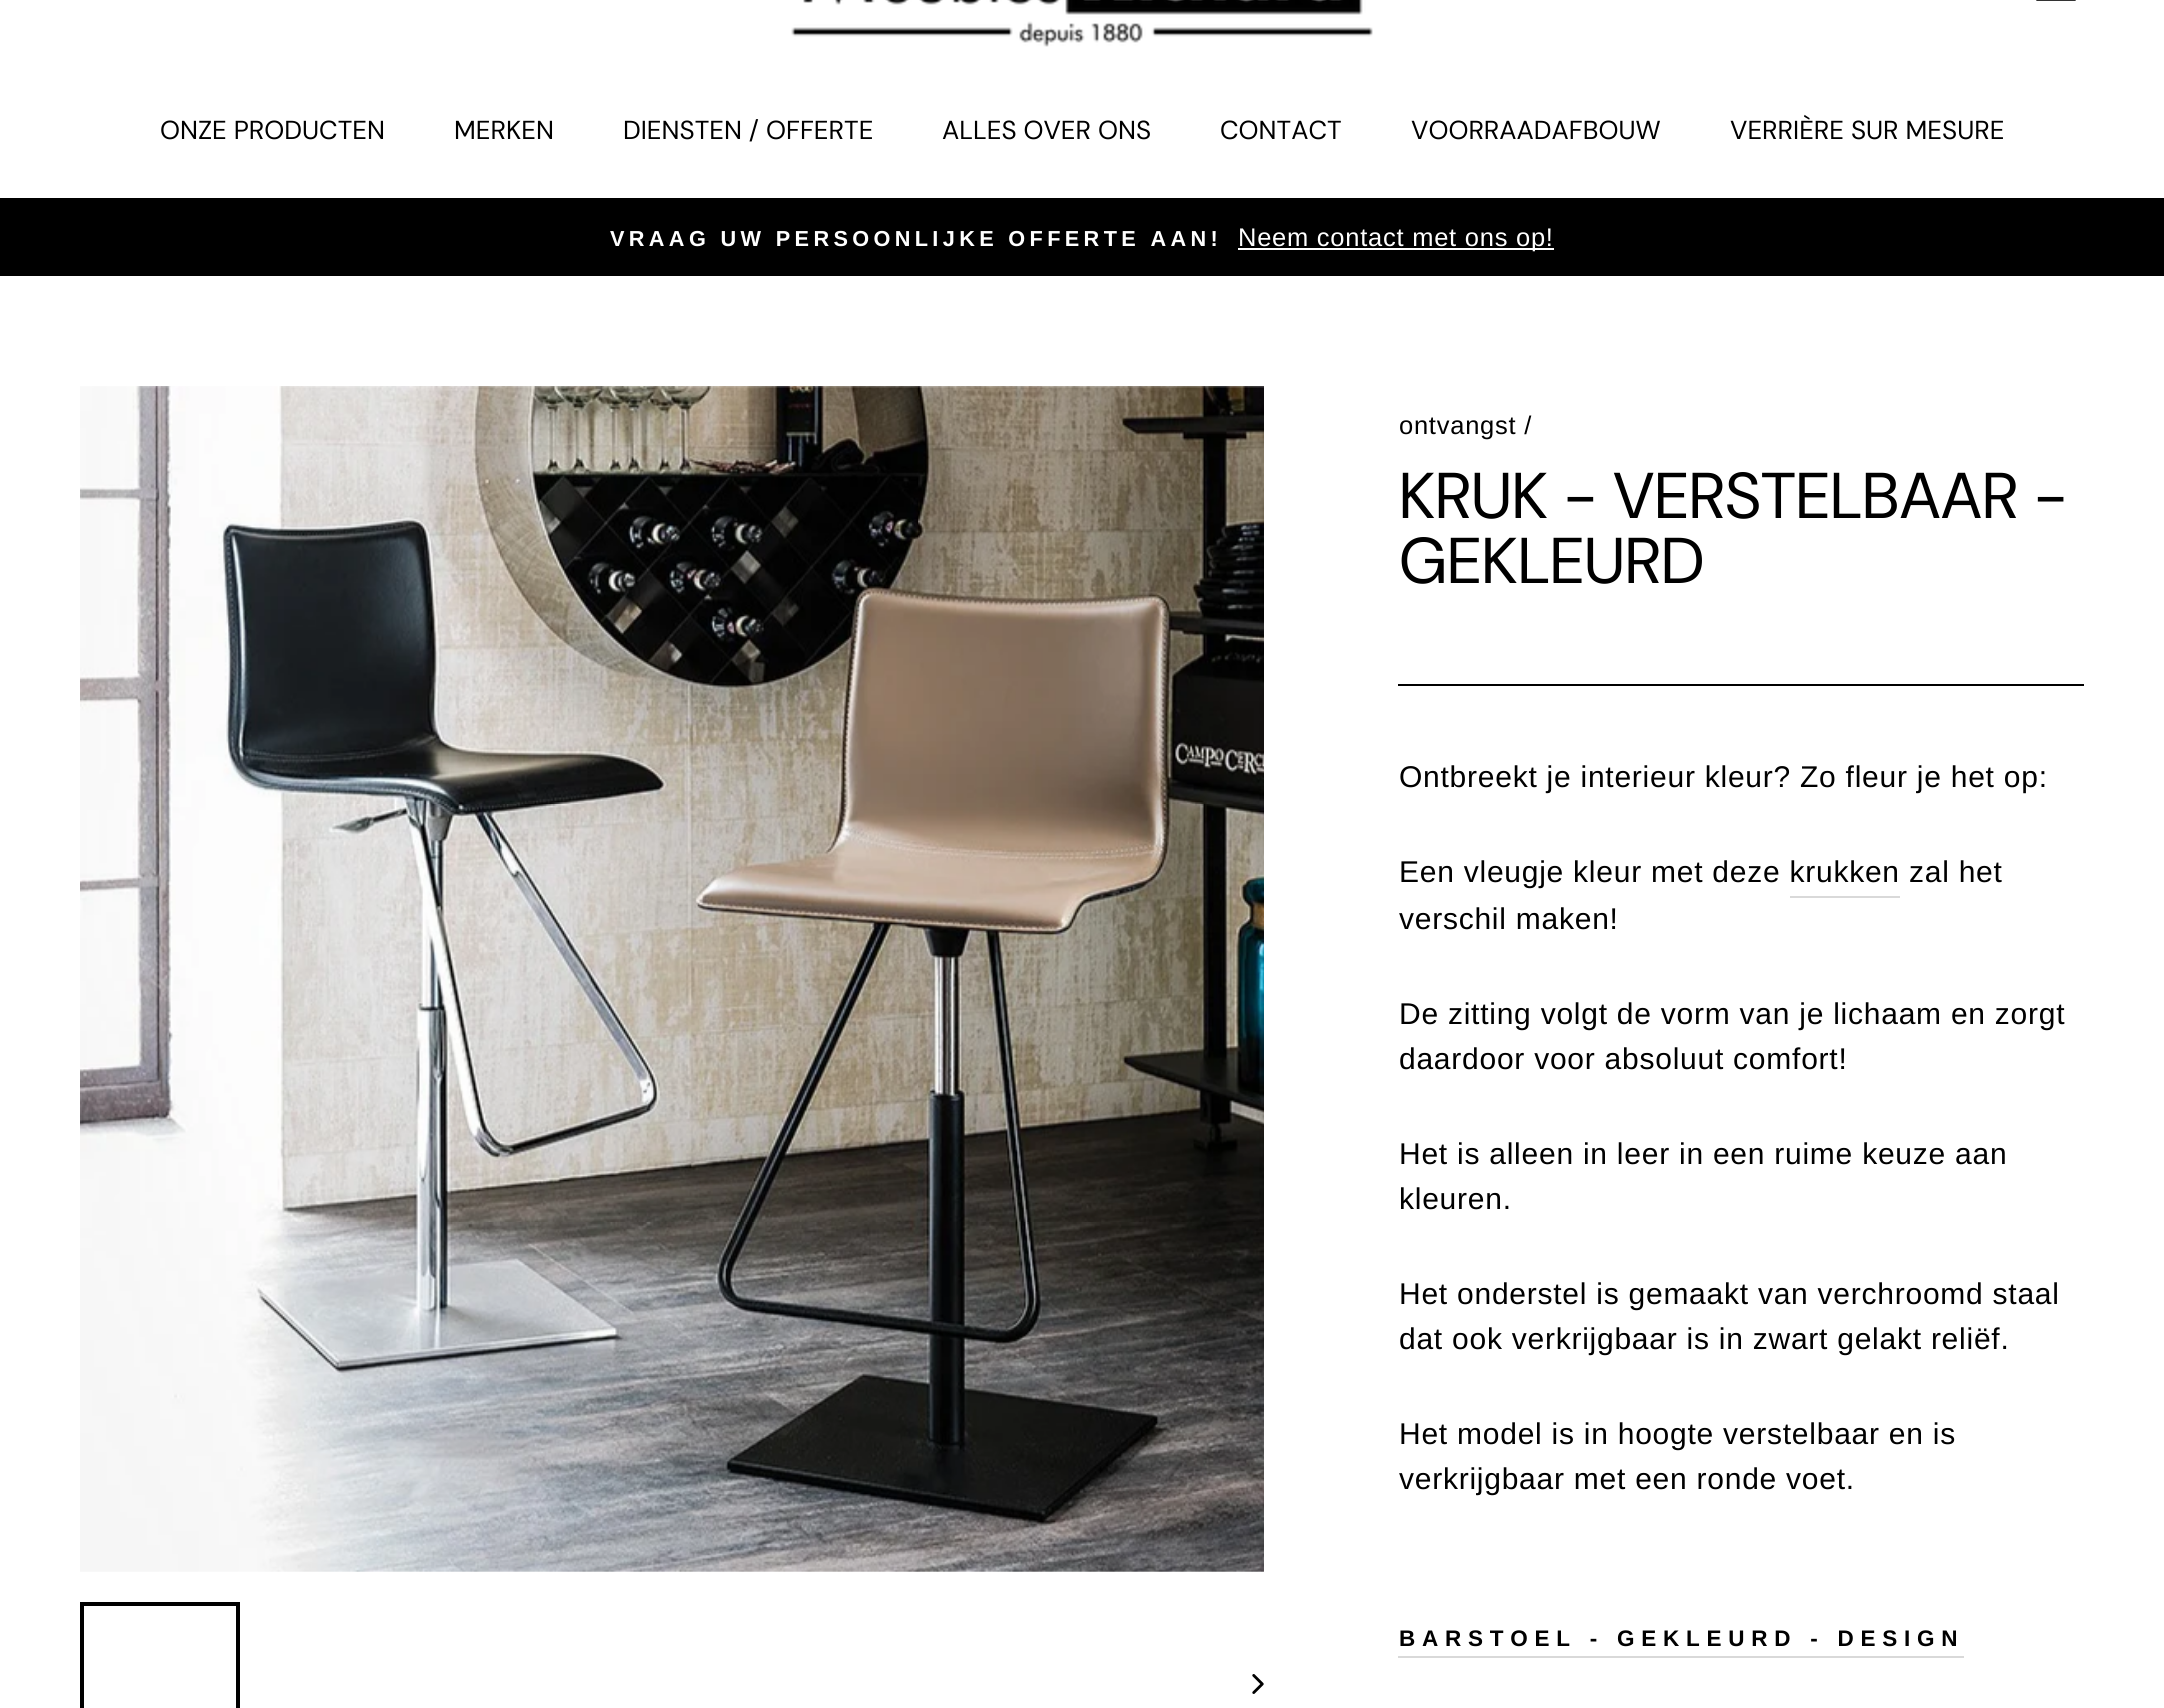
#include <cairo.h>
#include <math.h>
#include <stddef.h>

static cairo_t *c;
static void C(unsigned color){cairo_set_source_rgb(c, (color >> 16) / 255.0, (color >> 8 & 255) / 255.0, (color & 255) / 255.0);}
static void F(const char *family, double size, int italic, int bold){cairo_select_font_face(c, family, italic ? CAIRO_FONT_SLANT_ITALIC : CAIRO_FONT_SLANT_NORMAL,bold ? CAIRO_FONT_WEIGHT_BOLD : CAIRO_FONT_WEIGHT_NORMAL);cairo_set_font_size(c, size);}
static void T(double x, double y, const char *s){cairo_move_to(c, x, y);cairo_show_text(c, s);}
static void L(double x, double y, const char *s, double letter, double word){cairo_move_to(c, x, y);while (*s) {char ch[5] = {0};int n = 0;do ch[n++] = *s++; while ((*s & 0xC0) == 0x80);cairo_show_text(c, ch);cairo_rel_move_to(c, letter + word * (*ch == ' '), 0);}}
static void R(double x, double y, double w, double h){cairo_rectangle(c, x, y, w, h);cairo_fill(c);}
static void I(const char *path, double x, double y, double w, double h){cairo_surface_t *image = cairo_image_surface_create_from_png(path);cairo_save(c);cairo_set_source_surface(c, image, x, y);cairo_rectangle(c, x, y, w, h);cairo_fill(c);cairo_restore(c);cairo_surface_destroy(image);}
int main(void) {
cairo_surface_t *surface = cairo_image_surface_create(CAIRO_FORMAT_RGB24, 2164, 1708);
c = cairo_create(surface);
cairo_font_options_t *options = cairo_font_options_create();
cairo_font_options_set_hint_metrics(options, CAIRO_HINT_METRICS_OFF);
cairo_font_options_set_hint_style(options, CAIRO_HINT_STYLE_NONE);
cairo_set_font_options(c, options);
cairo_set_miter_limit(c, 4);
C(0xffffff);
cairo_paint(c);
I("1.png",791,0,582,47);
I("2.png",2036,0,40,1);
F("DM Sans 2",26,0,0);
C(0x000000);
T(160,139,"ONZE PRODUCTEN");
T(454,139,"MERKEN");
T(623,139,"DIENSTEN / OFFERTE");
T(942,139,"ALLES OVER ONS");
T(1220,139,"CONTACT");
T(1411,139,"VOORRAADAFBOUW");
T(1730,139,"VERRIÈRE SUR MESURE");
R(0,198,2164,78);
F("Liberation Sans",21.7,0,1);
C(0xffffff);
L(610,246,"VRAAG UW PERSOONLIJKE OFFERTE AAN!",4.35,0);
R(1238,248,316,2);
F("Liberation Sans",25.5,0,0);
L(1238,246,"Neem contact met ons op!",.75,0);
I("3.png",80,386,1184,1186);
cairo_rectangle(c,82,1604,156,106);
C(0x000000);
cairo_set_line_width(c,4);
cairo_stroke(c);
I("4.png",1252,1674,12,20);
L(1399,434,"ontvangst /",.75,0);
F("DM Sans",64.6,0,0);
T(1399,518,"KRUK - VERSTELBAAR -");
T(1399,583,"GEKLEURD");
R(1398,684,686,2);
F("Liberation Sans",30,0,0);
L(1399,787,"Ontbreekt je interieur kleur? Zo fleur je het op:",.75,0);
L(1399,882,"Een vleugje kleur met deze krukken",.75,0);
L(1909,882,"zal het",.75,0);
C(0xd9d9d9);
R(1790,896,110,2);
C(0x000000);
L(1399,929,"verschil maken!",.75,0);
L(1399,1024,"De zitting volgt de vorm van je lichaam en zorgt",.75,0);
L(1399,1069,"daardoor voor absoluut comfort!",.75,0);
L(1399,1164,"Het is alleen in leer in een ruime keuze aan",.75,0);
L(1399,1209,"kleuren.",.75,0);
L(1399,1304,"Het onderstel is gemaakt van verchroomd staal",.75,0);
L(1399,1349,"dat ook verkrijgbaar is in zwart gelakt reliëf.",.75,0);
L(1399,1444,"Het model is in hoogte verstelbaar en is",.75,0);
L(1399,1489,"verkrijgbaar met een ronde voet.",.75,0);
C(0xd9d9d9);
R(1398,1656,566,2);
F("Liberation Sans",22.5,0,1);
C(0x000000);
L(1399,1646,"BARSTOEL - GEKLEURD - DESIGN",6.75,0);
cairo_surface_write_to_png(surface, "o.png");
cairo_font_options_destroy(options);
cairo_destroy(c);
cairo_surface_destroy(surface);
return 0;
}
